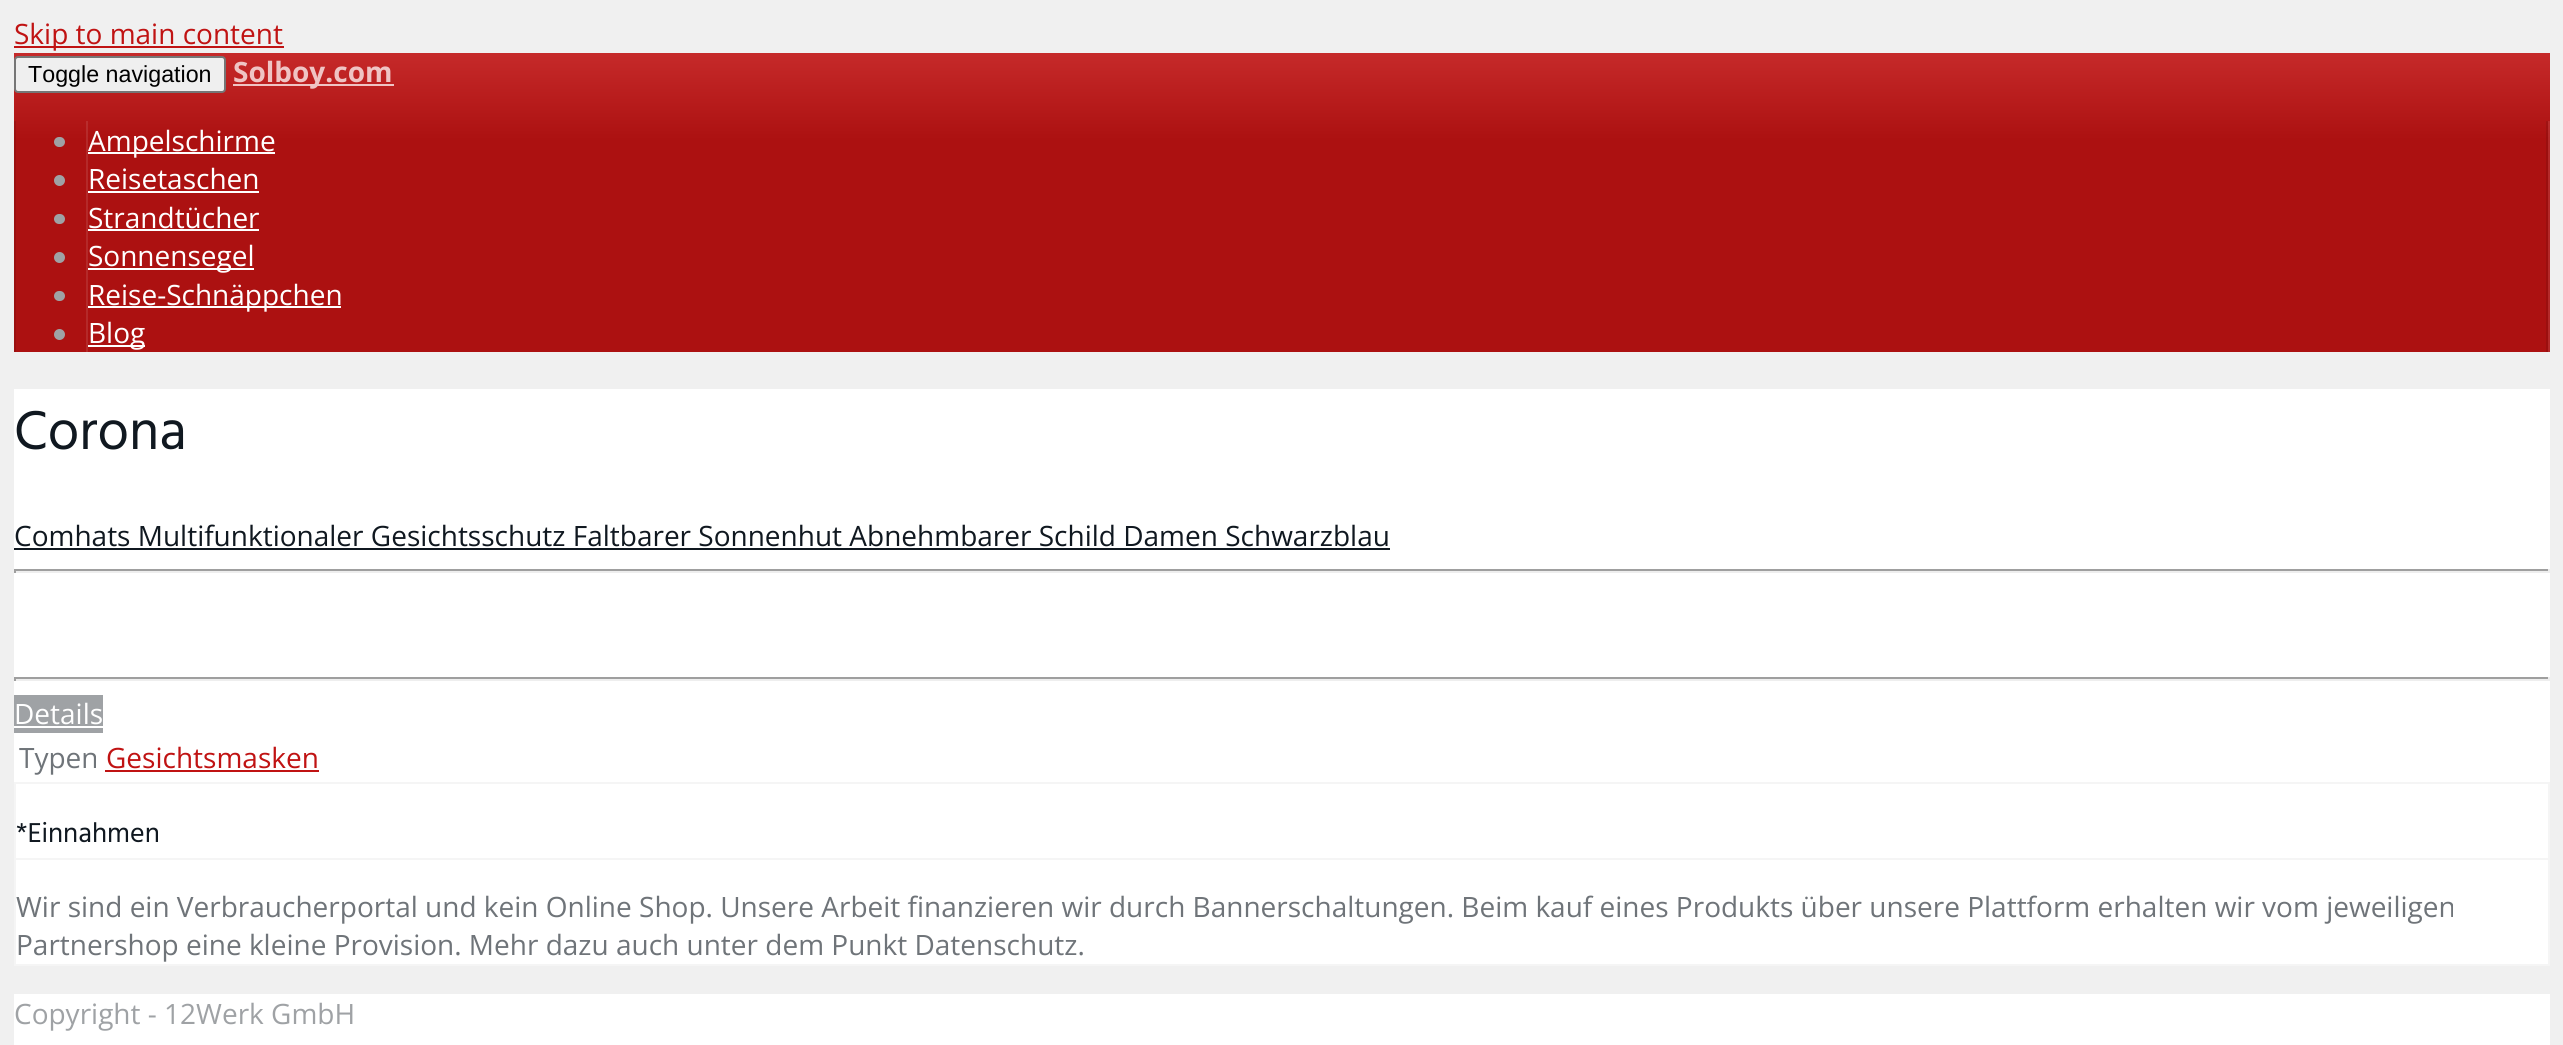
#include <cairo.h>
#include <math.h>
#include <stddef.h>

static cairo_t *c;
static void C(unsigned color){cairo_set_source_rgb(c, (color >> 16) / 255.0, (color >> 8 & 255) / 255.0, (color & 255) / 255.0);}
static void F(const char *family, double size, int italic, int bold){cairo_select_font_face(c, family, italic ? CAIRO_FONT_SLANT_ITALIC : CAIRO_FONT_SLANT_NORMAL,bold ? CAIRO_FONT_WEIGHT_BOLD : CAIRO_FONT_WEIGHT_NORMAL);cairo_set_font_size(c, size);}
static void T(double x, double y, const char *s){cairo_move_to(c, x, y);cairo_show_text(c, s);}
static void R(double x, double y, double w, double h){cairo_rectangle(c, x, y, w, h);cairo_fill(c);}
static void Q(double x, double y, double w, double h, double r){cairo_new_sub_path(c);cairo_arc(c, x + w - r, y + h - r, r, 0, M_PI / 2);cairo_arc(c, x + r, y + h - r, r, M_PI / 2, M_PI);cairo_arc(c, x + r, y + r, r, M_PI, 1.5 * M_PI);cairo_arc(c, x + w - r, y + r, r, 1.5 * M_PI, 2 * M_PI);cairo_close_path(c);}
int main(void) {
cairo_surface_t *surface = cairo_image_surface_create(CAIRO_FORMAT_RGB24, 2563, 1045);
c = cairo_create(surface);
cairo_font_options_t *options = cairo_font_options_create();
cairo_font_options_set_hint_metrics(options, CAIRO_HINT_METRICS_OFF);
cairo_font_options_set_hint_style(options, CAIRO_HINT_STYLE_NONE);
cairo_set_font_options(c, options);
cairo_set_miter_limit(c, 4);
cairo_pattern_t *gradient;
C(0xf0f0f0);
cairo_paint(c);
C(0xc01313);
R(14,46,270,2);
F("Open Sans",28,0,0);
T(14,44,"Skip to main content");
gradient = cairo_pattern_create_linear(1282,52,1282,352);
cairo_pattern_add_color_stop_rgba(gradient,0,0.776,0.165,0.165,1);
cairo_pattern_add_color_stop_rgba(gradient,.29,0.675,0.067,0.067,1);
cairo_set_source(c,gradient);
cairo_pattern_destroy(gradient);
R(14,53,2536,299);
gradient = cairo_pattern_create_linear(1282,52,1282,352);
cairo_pattern_add_color_stop_rgba(gradient,0,0.8,0.247,0.247,1);
cairo_pattern_add_color_stop_rgba(gradient,.29,0.706,0.161,0.161,1);
cairo_set_source(c,gradient);
cairo_pattern_destroy(gradient);
R(86,121,2,38);
gradient = cairo_pattern_create_linear(1282,52,1282,352);
cairo_pattern_add_color_stop_rgba(gradient,0,0.698,0.149,0.149,1);
cairo_pattern_add_color_stop_rgba(gradient,.29,0.608,0.059,0.059,1);
cairo_set_source(c,gradient);
cairo_pattern_destroy(gradient);
R(2546,121,2,38);
R(14,121,2,231);
gradient = cairo_pattern_create_linear(1282,52,1282,352);
cairo_pattern_add_color_stop_rgba(gradient,0,0.8,0.247,0.247,1);
cairo_pattern_add_color_stop_rgba(gradient,.29,0.706,0.161,0.161,1);
cairo_set_source(c,gradient);
cairo_pattern_destroy(gradient);
R(2548,121,2,231);
C(0xefefef);
Q(15,57,210,35,3);
cairo_fill_preserve(c);
C(0x767676);
cairo_stroke(c);
F("Liberation Sans",23.25,0,0);
C(0x000000);
T(28,82,"Toggle navigation");
C(0xefc4c4);
R(233,84,161,2);
F("Open Sans",28,0,1);
T(233,82,"Solboy.com");
C(0x9fa2a5);
Q(54,137,11,10,5);
cairo_fill(c);
C(0xffffff);
R(88,152,187,2);
F("Open Sans",28,0,0);
T(88,151,"Ampelschirme");
C(0x9b0f0f);
R(2546,159,2,193);
C(0xb42929);
R(86,159,2,193);
C(0x9fa2a5);
cairo_new_path(c);
cairo_arc(c,59.5,180.5,5.5,0,2 * M_PI);
cairo_fill(c);
C(0xffffff);
T(88,189,"Reisetaschen");
R(88,191,171,2);
C(0x9fa2a5);
Q(54,214,11,10,5);
cairo_fill(c);
C(0xffffff);
T(88,228,"Strandtücher");
R(88,229,171,2);
C(0x9fa2a5);
cairo_new_path(c);
cairo_arc(c,59.5,257.5,5.5,0,2 * M_PI);
cairo_fill(c);
C(0xffffff);
R(88,268,166,2);
T(88,266,"Sonnensegel");
C(0x9fa2a5);
Q(54,291,11,10,5);
cairo_fill(c);
C(0xffffff);
R(88,306,253,2);
T(88,305,"Reise-Schnäppchen");
C(0x9fa2a5);
cairo_new_path(c);
cairo_arc(c,59.5,334.5,5.5,0,2 * M_PI);
cairo_fill(c);
C(0xffffff);
R(88,345,57,2);
T(88,343,"Blog");
R(14,389,2536,393);
F("Hind",56,0,0);
C(0x101820);
T(14,449,"Corona");
F("Open Sans",28,0,0);
T(14,546,"Comhats Multifunktionaler Gesichtsschutz Faltbarer Sonnenhut Abnehmbarer Schild Damen Schwarzblau");
R(14,548,1376,2);
C(0x9f9f9f);
R(14,569,2536,2);
C(0xeeeeee);
R(2548,569,2,4);
R(14,571,2536,2);
C(0x9f9f9f);
R(14,569,2,4);
R(14,677,2536,2);
C(0xeeeeee);
R(2548,677,2,4);
R(14,679,2536,2);
C(0x9f9f9f);
R(14,677,2,4);
C(0x9fa2a5);
R(14,695,89,38);
C(0xffffff);
T(14,724,"Details");
R(14,726,89,2);
C(0x6f7479);
T(19,768,"Typen");
C(0xc01313);
T(106,768,"Gesichtsmasken");
R(105,770,214,2);
C(0xffffff);
cairo_rectangle(c,15,783,2534,182);
cairo_fill_preserve(c);
C(0xf5f5f5);
cairo_stroke(c);
R(16,858,2532,2);
F("Hind",28,0,0);
C(0x101820);
T(16,842,"*Einnahmen");
F("Open Sans",28,0,0);
C(0x6f7479);
T(16,917,"Wir sind ein Verbraucherportal und kein Online Shop. Unsere Arbeit finanzieren wir durch Bannerschaltungen. Beim kauf eines Produkts über unsere Plattform erhalten wir vom jeweiligen");
T(16,955,"Partnershop eine kleine Provision. Mehr dazu auch unter dem Punkt Datenschutz.");
C(0xffffff);
R(14,994,2536,51);
C(0x9fa2a5);
T(14,1024,"Copyright - 12Werk GmbH");
cairo_surface_write_to_png(surface, "o.png");
cairo_font_options_destroy(options);
cairo_destroy(c);
cairo_surface_destroy(surface);
return 0;
}
